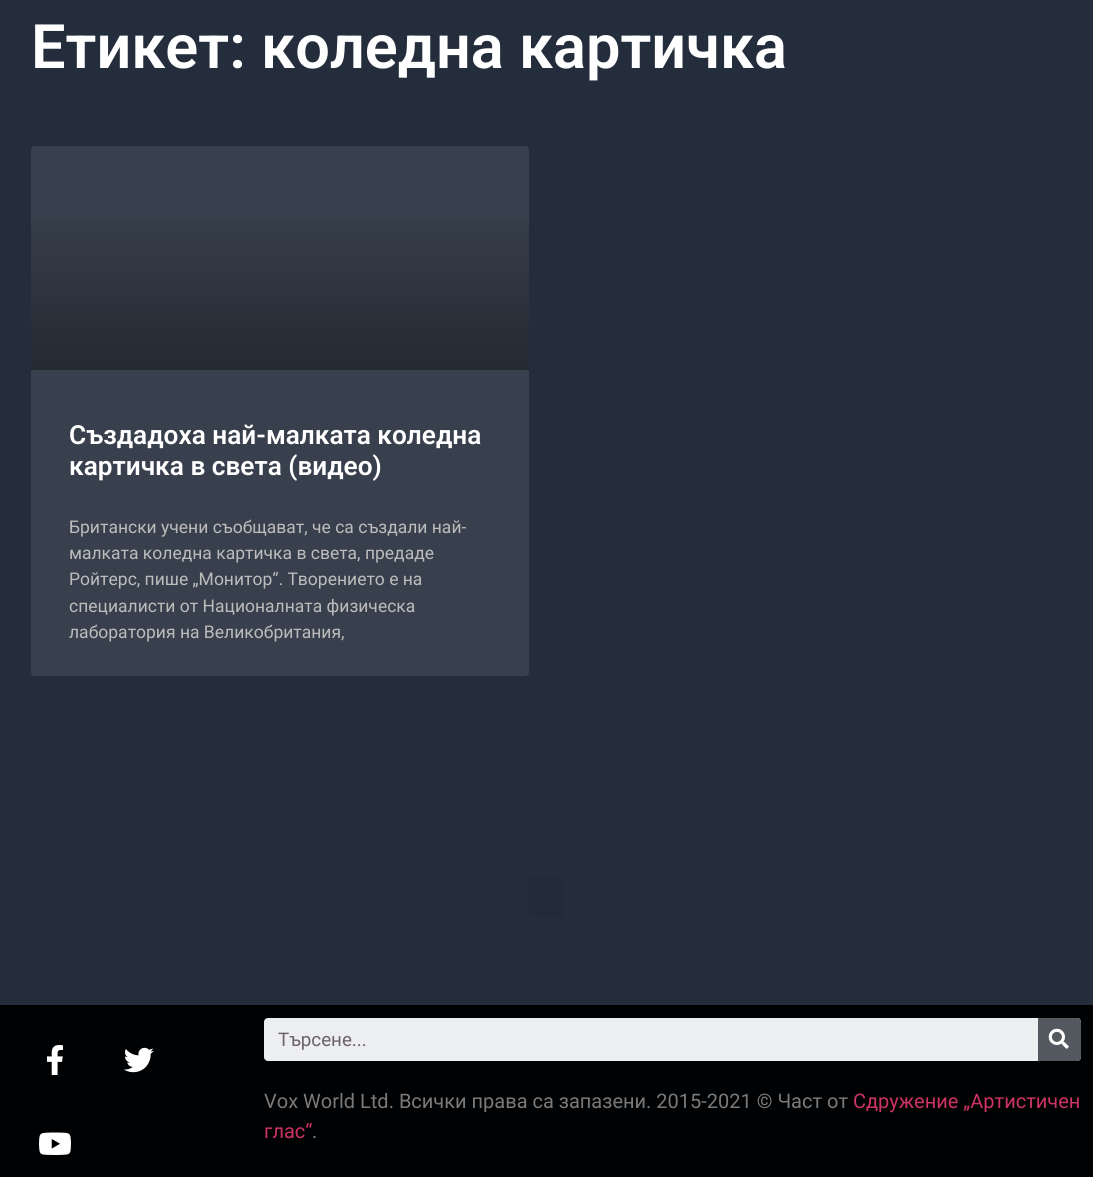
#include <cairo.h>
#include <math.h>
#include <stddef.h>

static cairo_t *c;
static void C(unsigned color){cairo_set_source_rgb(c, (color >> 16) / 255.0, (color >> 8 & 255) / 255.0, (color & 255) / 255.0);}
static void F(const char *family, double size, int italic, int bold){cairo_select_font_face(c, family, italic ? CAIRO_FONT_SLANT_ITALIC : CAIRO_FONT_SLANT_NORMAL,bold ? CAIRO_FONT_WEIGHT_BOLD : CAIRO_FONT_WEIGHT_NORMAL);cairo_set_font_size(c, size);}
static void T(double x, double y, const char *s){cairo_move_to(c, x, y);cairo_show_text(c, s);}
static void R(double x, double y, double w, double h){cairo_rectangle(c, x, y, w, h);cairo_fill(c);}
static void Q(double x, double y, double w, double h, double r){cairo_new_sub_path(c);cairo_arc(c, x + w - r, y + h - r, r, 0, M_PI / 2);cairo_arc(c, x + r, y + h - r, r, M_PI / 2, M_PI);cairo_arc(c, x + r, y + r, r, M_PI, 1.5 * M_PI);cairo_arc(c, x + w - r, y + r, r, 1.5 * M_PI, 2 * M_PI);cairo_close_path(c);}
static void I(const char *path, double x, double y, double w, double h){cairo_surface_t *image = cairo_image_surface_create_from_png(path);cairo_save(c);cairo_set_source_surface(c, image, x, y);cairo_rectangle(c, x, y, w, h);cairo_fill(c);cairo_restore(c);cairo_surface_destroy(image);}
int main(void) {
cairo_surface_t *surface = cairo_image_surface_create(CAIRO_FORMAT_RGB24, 1093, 1177);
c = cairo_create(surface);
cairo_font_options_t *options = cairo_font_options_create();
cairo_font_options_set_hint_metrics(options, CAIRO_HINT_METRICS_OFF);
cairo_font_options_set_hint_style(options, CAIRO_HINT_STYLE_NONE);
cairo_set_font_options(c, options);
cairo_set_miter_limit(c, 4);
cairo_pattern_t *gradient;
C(0x242d3b);
cairo_paint(c);
F("Roboto SemiBold",61.25,0,0);
C(0xffffff);
T(31,68,"Етикет: коледна картичка");
C(0x38404d);
Q(31,146,498,530,4);
cairo_fill(c);
gradient = cairo_pattern_create_linear(280,370,280,146);
cairo_pattern_add_color_stop_rgba(gradient,0,0,0,0,.35);
cairo_pattern_add_color_stop_rgba(gradient,.75,0,0,0,0);
cairo_set_source(c,gradient);
cairo_pattern_destroy(gradient);
R(31,218,498,152);
F("Roboto SemiBold",26.25,0,0);
C(0xffffff);
T(69,444,"Създадоха най-малката коледна");
T(69,475,"картичка в света (видео)");
F("Roboto",17.5,0,0);
C(0xbcbcbc);
T(69,533,"Британски учени съобщават, че са създали най-");
T(69,559,"малката коледна картичка в света, предаде");
T(69,585,"Ройтерс, пише „Монитор“. Творението е на");
T(69,612,"специалисти от Националната физическа");
T(69,638,"лаборатория на Великобритания,");
C(0x222b38);
Q(529,876,36,42,4);
cairo_fill(c);
C(0x000103);
R(0,1005,1093,172);
I("1.png",46,1045,18,30);
I("2.png",124,1047,30,26);
I("3.png",39,1132,32,23);
C(0xeceeef);
Q(264,1018,817,43,4);
cairo_fill(c);
F("Roboto",18.75,0,0);
C(0x6c616a);
T(278,1046,"Търсене...");
C(0x54595f);
cairo_new_path(c);
cairo_move_to(c,1038,1018);
cairo_line_to(c,1077,1018);
cairo_curve_to(c,1079,1018,1081,1020,1081,1022);
cairo_line_to(c,1081,1057);
cairo_curve_to(c,1081,1059,1079,1061,1077,1061);
cairo_line_to(c,1038,1061);
cairo_close_path(c);
cairo_fill(c);
I("4.png",1048,1028,21,21);
F("Roboto",20,0,0);
C(0x7a7a7a);
T(264,1108,"Vox World Ltd. Всички права са запазени. 2015-2021 © Част от");
C(0xcc3366);
T(853,1108,"Сдружение „Артистичен");
T(264,1138,"глас“");
C(0x7a7a7a);
T(312,1138,".");
cairo_surface_write_to_png(surface, "o.png");
cairo_font_options_destroy(options);
cairo_destroy(c);
cairo_surface_destroy(surface);
return 0;
}
